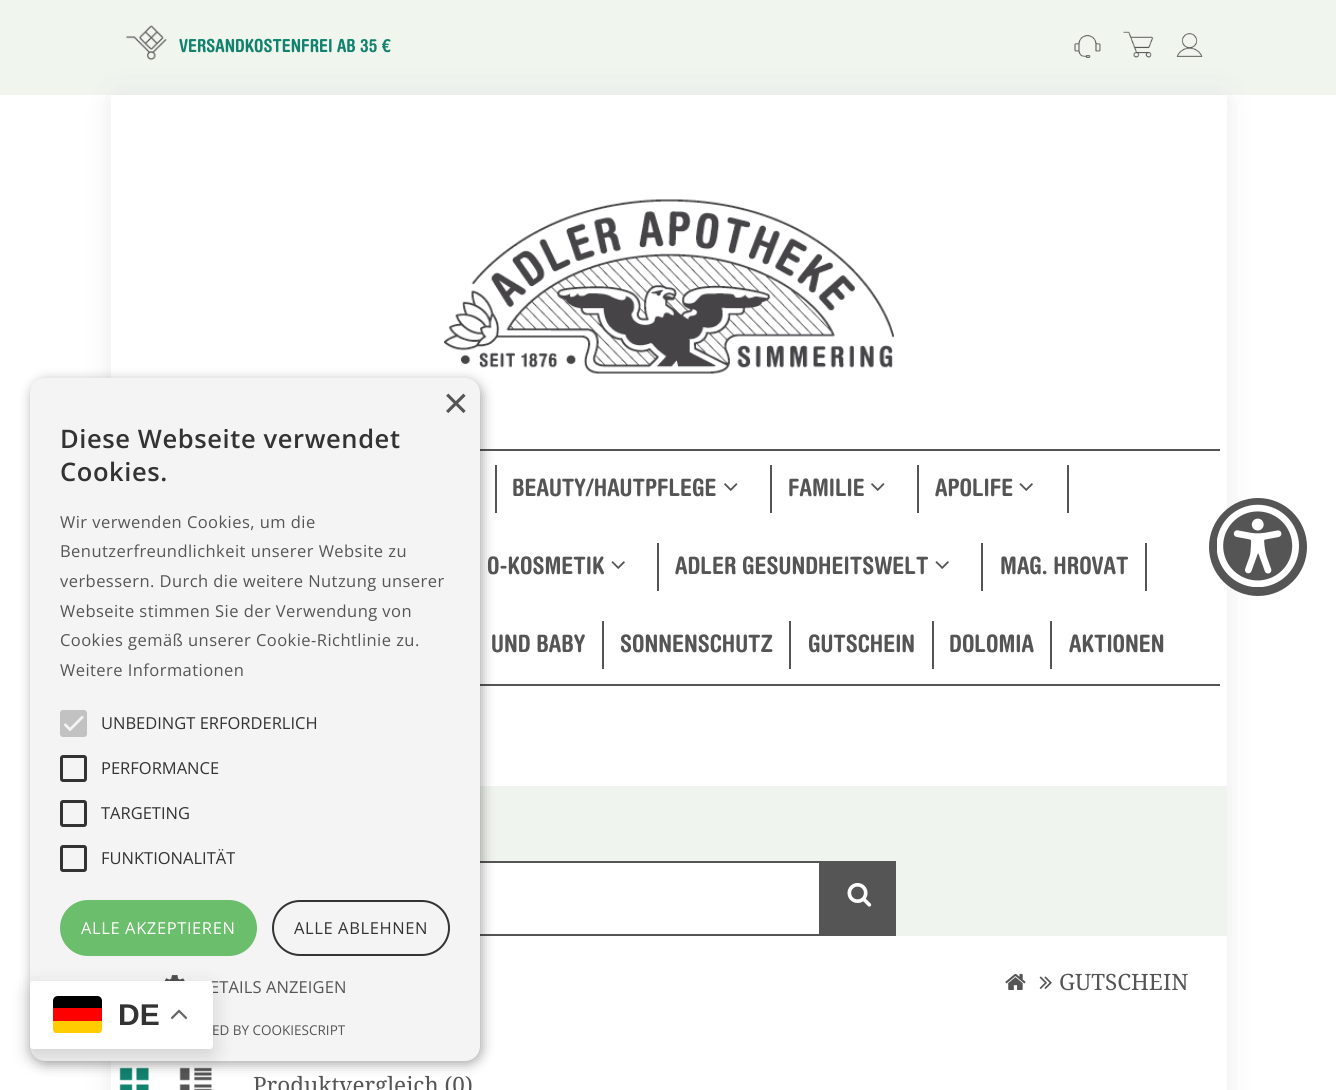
#include <cairo.h>
#include <math.h>
#include <stddef.h>

static cairo_t *c;
static void C(unsigned color){cairo_set_source_rgb(c, (color >> 16) / 255.0, (color >> 8 & 255) / 255.0, (color & 255) / 255.0);}
static void F(const char *family, double size, int italic, int bold){cairo_select_font_face(c, family, italic ? CAIRO_FONT_SLANT_ITALIC : CAIRO_FONT_SLANT_NORMAL,bold ? CAIRO_FONT_WEIGHT_BOLD : CAIRO_FONT_WEIGHT_NORMAL);cairo_set_font_size(c, size);}
static void T(double x, double y, const char *s){cairo_move_to(c, x, y);cairo_show_text(c, s);}
static void L(double x, double y, const char *s, double letter, double word){cairo_move_to(c, x, y);while (*s) {char ch[5] = {0};int n = 0;do ch[n++] = *s++; while ((*s & 0xC0) == 0x80);cairo_show_text(c, ch);cairo_rel_move_to(c, letter + word * (*ch == ' '), 0);}}
static void R(double x, double y, double w, double h){cairo_rectangle(c, x, y, w, h);cairo_fill(c);}
static void Q(double x, double y, double w, double h, double r){cairo_new_sub_path(c);cairo_arc(c, x + w - r, y + h - r, r, 0, M_PI / 2);cairo_arc(c, x + r, y + h - r, r, M_PI / 2, M_PI);cairo_arc(c, x + r, y + r, r, M_PI, 1.5 * M_PI);cairo_arc(c, x + w - r, y + r, r, 1.5 * M_PI, 2 * M_PI);cairo_close_path(c);}
static void S(double x, double y, double w, double h, double r, double blur, double alpha){cairo_push_group_with_content(c, CAIRO_CONTENT_ALPHA);cairo_set_operator(c, CAIRO_OPERATOR_SOURCE);for (int i = 15; i >= -15 && fmin(w, h) + blur * i / 3 > 0; i -= 2) {double e = blur * i / 6;cairo_set_source_rgba(c, 0, 0, 0, alpha * erfc((i - 1) / 8.5) / 2);Q(x - e, y - e, w + 2 * e, h + 2 * e, fmax(0, fmin(r + e + blur * .6, fmin(w, h) / 2 + e)));cairo_fill(c);}cairo_pattern_t *soft = cairo_pop_group(c);cairo_mask(c, soft);cairo_pattern_destroy(soft);}
static void I(const char *path, double x, double y, double w, double h){cairo_surface_t *image = cairo_image_surface_create_from_png(path);cairo_save(c);cairo_set_source_surface(c, image, x, y);cairo_rectangle(c, x, y, w, h);cairo_fill(c);cairo_restore(c);cairo_surface_destroy(image);}
int main(void) {
cairo_surface_t *surface = cairo_image_surface_create(CAIRO_FORMAT_RGB24, 1336, 1090);
c = cairo_create(surface);
cairo_font_options_t *options = cairo_font_options_create();
cairo_font_options_set_hint_metrics(options, CAIRO_HINT_METRICS_OFF);
cairo_font_options_set_hint_style(options, CAIRO_HINT_STYLE_NONE);
cairo_set_font_options(c, options);
cairo_set_miter_limit(c, 4);
C(0xffffff);
cairo_paint(c);
C(0xf0f5ee);
R(0,0,1336,95);
cairo_save(c);
cairo_set_fill_rule(c,CAIRO_FILL_RULE_EVEN_ODD);
cairo_new_path(c);
cairo_move_to(c,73,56);
cairo_line_to(c,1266,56);
cairo_line_to(c,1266,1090);
cairo_line_to(c,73,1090);
cairo_close_path(c);
cairo_move_to(c,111,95);
cairo_line_to(c,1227,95);
cairo_line_to(c,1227,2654);
cairo_line_to(c,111,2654);
cairo_close_path(c);
cairo_clip(c);
C(0xdbdbdb);
S(119,102,1101,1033,0,15,1);
cairo_restore(c);
I("1.png",126,25,41,36);
F("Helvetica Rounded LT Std",18,0,1);
C(0x11826e);
T(179,52,"VERSANDKOSTENFREI AB 35 €");
I("2.png",1074,34,27,24);
I("3.png",1123,31,31,27);
I("4.png",1176,33,27,24);
I("6.png",444,199,450,175);
C(0x555555);
R(480,449,740,2);
R(480,684,740,2);
R(495,465,2,48);
C(0xf0f4ee);
R(480,786,747,150);
C(0xffffff);
R(480,863,339,71);
cairo_rectangle(c,118,862,702,73);
C(0x555555);
cairo_stroke(c);
I("12.png",119,1067,30,23);
I("13.png",179,1067,33,23);
C(0x000000);
S(32,381,450,683,15,6,.35);
C(0xf4f4f4);
Q(30,378,450,683,15);
cairo_fill(c);
F("Liberation Sans",44,0,0);
C(0x555555);
T(443,418,"×");
F("Open Sans SemiBold",25.5,0,0);
C(0x333333);
L(60,448,"Diese Webseite verwendet",.6,0);
L(60,481,"Cookies.",.6,0);
F("Open Sans",16.5,0,0);
C(0x555555);
L(60,528,"Wir verwenden Cookies, um die",.45,0);
L(60,557,"Benutzerfreundlichkeit unserer Website zu",.45,0);
L(60,587,"verbessern. Durch die weitere Nutzung unserer",.45,0);
L(60,617,"Webseite stimmen Sie der Verwendung von",.45,0);
L(60,646,"Cookies gemäß unserer Cookie-Richtlinie zu.",.45,0);
L(60,676,"Weitere Informationen",.45,0);
C(0xc2c2c2);
Q(60,710,27,27,3);
cairo_fill(c);
cairo_new_path(c);
cairo_move_to(c,64.5,724);
cairo_line_to(c,70,729.5);
cairo_line_to(c,83,716.5);
C(0xf4f4f4);
cairo_set_line_width(c,2.7);
cairo_stroke(c);
C(0x333333);
T(101,729,"UNBEDINGT ERFORDERLICH");
Q(61.5,756.5,24,24,1.5);
cairo_set_line_width(c,3);
cairo_stroke(c);
T(101,774,"PERFORMANCE");
Q(61.5,801.5,24,24,1.5);
cairo_stroke(c);
T(101,819,"TARGETING");
Q(61.5,846.5,24,24,1.5);
cairo_stroke(c);
T(101,864,"FUNKTIONALITÄT");
C(0x6bbe6b);
Q(60,900,197,56,28);
cairo_fill(c);
C(0xffffff);
L(81,934,"ALLE AKZEPTIEREN",.6,0);
Q(273,901,176,54,27);
C(0x333333);
cairo_set_line_width(c,2);
cairo_stroke(c);
L(294,934,"ALLE ABLEHNEN",.6,0);
I("5.png",164,975,21,6);
C(0x555555);
L(210,993,"ETAILS ANZEIGEN",.1,0);
F("Open Sans",13.5,0,0);
T(212,1035,"ED BY COOKIESCRIPT");
R(770,465,2,48);
F("Helvetica Rounded LT Std",24,0,1);
T(512,496,"BEAUTY/HAUTPFLEGE");
I("7.png",724,483,14,8);
R(917,465,2,48);
T(788,496,"FAMILIE");
I("7.png",871,483,14,8);
R(1067,465,2,48);
T(935,496,"APOLIFE");
I("8.png",1019,483,14,8);
R(657,543,2,48);
T(487,574,"O-KOSMETIK");
I("8.png",611,561,14,8);
R(981,543,2,48);
T(675,574,"ADLER GESUNDHEITSWELT");
I("8.png",935,561,14,8);
R(1145,543,2,48);
T(1000,574,"MAG. HROVAT");
R(602,621,2,48);
T(491,652,"UND BABY");
R(789,621,2,48);
T(620,652,"SONNENSCHUTZ");
R(932,621,2,48);
T(808,652,"GUTSCHEIN");
R(1050,621,2,48);
T(949,652,"DOLOMIA");
T(1069,652,"AKTIONEN");
R(821,861,75,75);
I("9.png",847,883,25,24);
I("10.png",1005,973,21,17);
I("11.png",1039,976,13,13);
F("Droid Serif",22.5,0,0);
T(1059,990,"GUTSCHEIN");
T(253,1093,"Produktvergleich (0)");
cairo_new_path(c);
cairo_arc(c,1258,547,49,0,2 * M_PI);
cairo_fill(c);
I("14.png",1217,504,82,83);
C(0x000000);
S(30,989,183,67,3,11,.15);
C(0xffffff);
Q(30,981,183,68,3);
cairo_fill(c);
cairo_save(c);
Q(53,996,49,38,5);
cairo_clip(c);
C(0xffcc00);
R(53,1021,49,12);
cairo_restore(c);
C(0x000000);
cairo_new_path(c);
cairo_move_to(c,58,996);
cairo_line_to(c,97,996);
cairo_curve_to(c,100,996,102,998,102,1001);
cairo_line_to(c,102,1008);
cairo_line_to(c,53,1008);
cairo_line_to(c,53,1001);
cairo_curve_to(c,53,998,55,996,58,996);
cairo_close_path(c);
cairo_fill(c);
C(0xff0000);
R(53,1008,49,13);
F("Liberation Sans",30,0,1);
C(0x333333);
T(118,1025,"DE");
I("15.png",171,1009,17,11);
cairo_surface_write_to_png(surface, "o.png");
cairo_font_options_destroy(options);
cairo_destroy(c);
cairo_surface_destroy(surface);
return 0;
}
